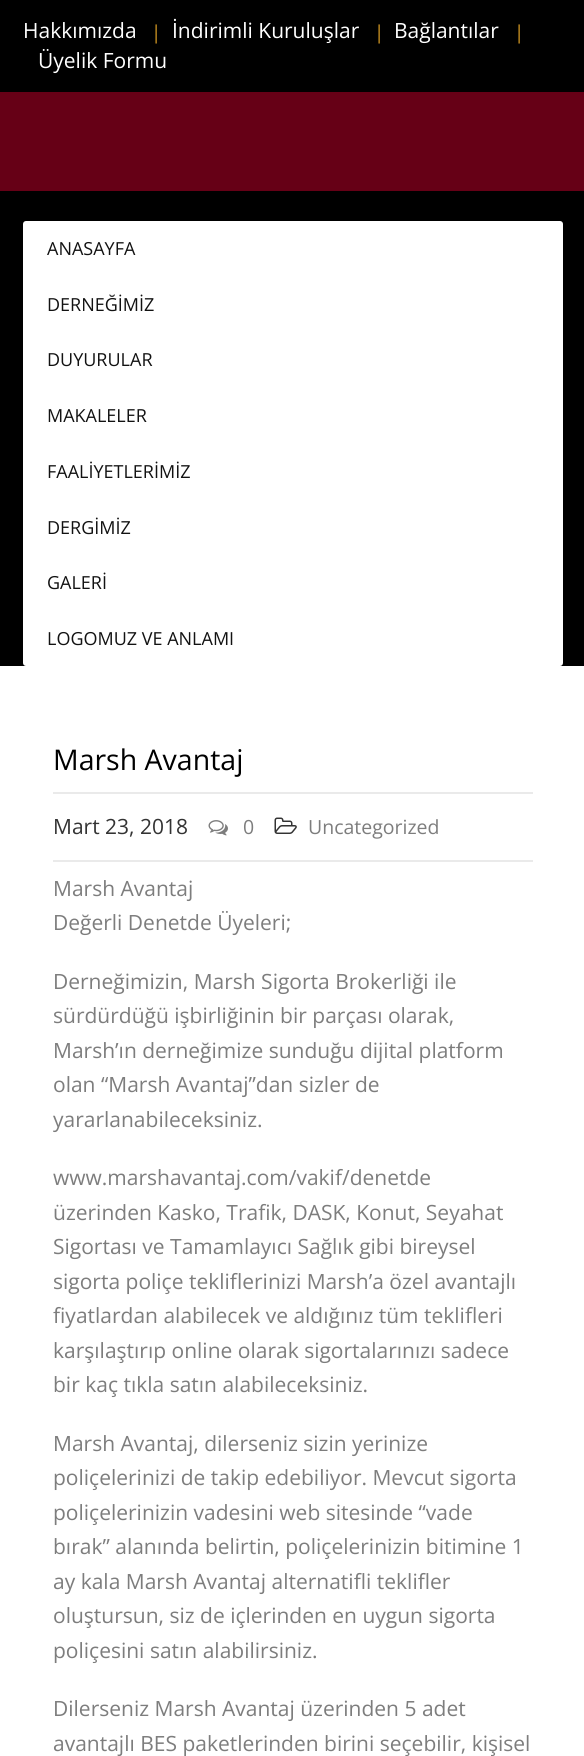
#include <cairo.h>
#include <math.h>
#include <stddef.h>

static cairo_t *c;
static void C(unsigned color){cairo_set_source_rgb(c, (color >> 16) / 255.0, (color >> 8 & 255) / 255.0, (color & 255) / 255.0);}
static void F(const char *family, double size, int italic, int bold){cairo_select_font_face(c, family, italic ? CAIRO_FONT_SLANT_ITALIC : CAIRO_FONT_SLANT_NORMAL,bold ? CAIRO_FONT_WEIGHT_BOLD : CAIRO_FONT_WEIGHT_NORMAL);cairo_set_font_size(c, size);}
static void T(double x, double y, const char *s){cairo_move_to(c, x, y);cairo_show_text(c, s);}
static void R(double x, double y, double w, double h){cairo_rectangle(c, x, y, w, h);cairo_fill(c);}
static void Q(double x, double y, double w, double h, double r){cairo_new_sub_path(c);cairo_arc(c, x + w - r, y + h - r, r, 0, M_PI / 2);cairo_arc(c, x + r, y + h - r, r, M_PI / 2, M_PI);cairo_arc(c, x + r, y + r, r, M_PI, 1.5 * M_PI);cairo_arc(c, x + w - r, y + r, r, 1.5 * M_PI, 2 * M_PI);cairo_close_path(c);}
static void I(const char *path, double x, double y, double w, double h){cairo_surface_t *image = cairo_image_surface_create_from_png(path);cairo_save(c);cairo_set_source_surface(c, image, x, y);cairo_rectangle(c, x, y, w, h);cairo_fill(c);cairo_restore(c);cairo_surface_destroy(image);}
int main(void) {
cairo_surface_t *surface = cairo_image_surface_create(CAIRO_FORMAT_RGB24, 584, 1756);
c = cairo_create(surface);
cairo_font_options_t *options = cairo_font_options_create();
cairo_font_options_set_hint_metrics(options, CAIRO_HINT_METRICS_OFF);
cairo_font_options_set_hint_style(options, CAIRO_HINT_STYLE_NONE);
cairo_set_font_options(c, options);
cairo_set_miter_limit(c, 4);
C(0xffffff);
cairo_paint(c);
C(0x000000);
R(0,0,584,92);
F("Open Sans",21,0,0);
C(0xffffff);
T(23,38,"Hakkımızda");
F("Liberation Serif",21,0,0);
C(0xffb829);
T(154,39,"|");
F("Open Sans",21,0,0);
C(0xffffff);
T(172,38,"İndirimli Kuruluşlar");
F("Liberation Serif",21,0,0);
C(0xffb829);
T(377,39,"|");
F("Open Sans",21,0,0);
C(0xffffff);
T(394,38,"Bağlantılar");
F("Liberation Serif",21,0,0);
C(0xffb829);
T(517,39,"|");
F("Open Sans",21,0,0);
C(0xffffff);
T(38,68,"Üyelik Formu");
C(0x660016);
R(0,92,584,99);
C(0x000000);
R(0,191,584,475);
C(0xffffff);
Q(23,221,540,445,3);
cairo_fill(c);
F("Open Sans",18,0,0);
C(0x121212);
T(47,255,"ANASAYFA");
T(47,311,"DERNEĞİMİZ");
T(47,366,"DUYURULAR");
T(47,422,"MAKALELER");
T(47,478,"FAALİYETLERİMİZ");
T(47,534,"DERGİMİZ");
T(47,589,"GALERİ");
T(47,645,"LOGOMUZ VE ANLAMI");
F("Open Sans",28.5,0,0);
C(0x000000);
T(53,770,"Marsh Avantaj");
C(0xeaeaea);
R(53,792,480,2);
R(53,860,480,2);
F("Open Sans",21,0,0);
C(0x333333);
T(53,834,"Mart 23, 2018");
I("1.png",208,820,20,16);
F("Open Sans",19.5,0,0);
C(0x7d7d7d);
T(243,834,"0");
I("2.png",274,817,23,17);
T(308,834,"Uncategorized");
F("Open Sans",21,0,0);
T(53,896,"Marsh Avantaj");
T(53,930,"Değerli Denetde Üyeleri;");
T(53,989,"Derneğimizin, Marsh Sigorta Brokerliği ile");
T(53,1023,"sürdürdüğü işbirliğinin bir parçası olarak,");
T(53,1058,"Marsh’ın derneğimize sunduğu dijital platform");
T(53,1092,"olan “Marsh Avantaj”dan sizler de");
T(53,1127,"yararlanabileceksiniz.");
T(53,1185,"www.marshavantaj.com/vakif/denetde");
T(53,1220,"üzerinden Kasko, Trafik, DASK, Konut, Seyahat");
T(53,1254,"Sigortası ve Tamamlayıcı Sağlık gibi bireysel");
T(53,1289,"sigorta poliçe tekliflerinizi Marsh’a özel avantajlı");
T(53,1323,"fiyatlardan alabilecek ve aldığınız tüm teklifleri");
T(53,1358,"karşılaştırıp online olarak sigortalarınızı sadece");
T(53,1392,"bir kaç tıkla satın alabileceksiniz.");
T(53,1451,"Marsh Avantaj, dilerseniz sizin yerinize");
T(53,1485,"poliçelerinizi de takip edebiliyor. Mevcut sigorta");
T(53,1520,"poliçelerinizin vadesini web sitesinde “vade");
T(53,1554,"bırak” alanında belirtin, poliçelerinizin bitimine 1");
T(53,1589,"ay kala Marsh Avantaj alternatifli teklifler");
T(53,1623,"oluştursun, siz de içlerinden en uygun sigorta");
T(53,1658,"poliçesini satın alabilirsiniz.");
T(53,1716,"Dilerseniz Marsh Avantaj üzerinden 5 adet");
T(53,1751,"avantajlı BES paketlerinden birini seçebilir, kişisel");
cairo_surface_write_to_png(surface, "o.png");
cairo_font_options_destroy(options);
cairo_destroy(c);
cairo_surface_destroy(surface);
return 0;
}
